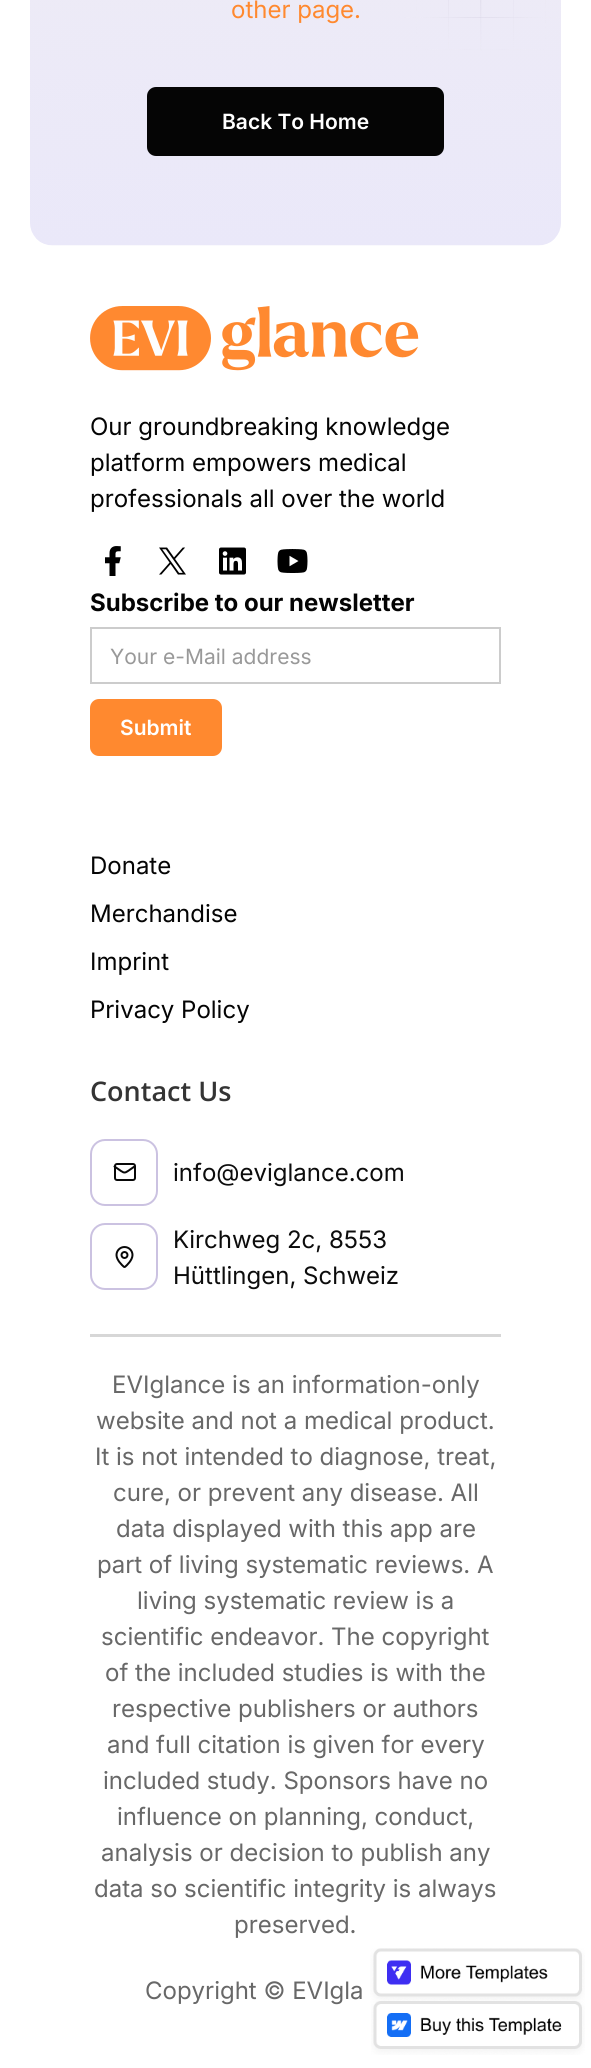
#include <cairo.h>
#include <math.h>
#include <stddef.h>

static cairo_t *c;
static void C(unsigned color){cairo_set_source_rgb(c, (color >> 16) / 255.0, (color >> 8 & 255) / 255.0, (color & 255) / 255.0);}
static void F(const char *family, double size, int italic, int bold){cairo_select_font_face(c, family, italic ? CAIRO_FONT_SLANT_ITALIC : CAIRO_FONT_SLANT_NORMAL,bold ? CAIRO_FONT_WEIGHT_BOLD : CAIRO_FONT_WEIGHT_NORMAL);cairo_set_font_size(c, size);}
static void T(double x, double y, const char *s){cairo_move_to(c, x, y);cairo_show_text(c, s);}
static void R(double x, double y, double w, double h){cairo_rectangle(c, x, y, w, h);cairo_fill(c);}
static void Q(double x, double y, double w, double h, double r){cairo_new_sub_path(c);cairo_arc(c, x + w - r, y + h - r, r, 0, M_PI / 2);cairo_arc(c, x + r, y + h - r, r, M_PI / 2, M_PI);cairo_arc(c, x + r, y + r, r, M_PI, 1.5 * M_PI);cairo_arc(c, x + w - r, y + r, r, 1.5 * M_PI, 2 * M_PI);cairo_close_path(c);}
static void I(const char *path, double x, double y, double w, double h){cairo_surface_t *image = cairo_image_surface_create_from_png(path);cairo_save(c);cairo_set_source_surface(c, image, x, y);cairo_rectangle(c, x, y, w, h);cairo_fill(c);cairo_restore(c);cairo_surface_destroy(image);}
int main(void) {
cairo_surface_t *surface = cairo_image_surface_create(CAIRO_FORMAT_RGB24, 591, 2068);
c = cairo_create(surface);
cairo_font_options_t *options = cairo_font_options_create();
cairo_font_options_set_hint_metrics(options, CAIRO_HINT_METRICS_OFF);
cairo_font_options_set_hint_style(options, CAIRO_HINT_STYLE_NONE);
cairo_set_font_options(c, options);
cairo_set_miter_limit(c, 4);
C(0xffffff);
cairo_paint(c);
I("1.png",30,0,531,246);
F("Inter",24,0,0);
C(0xff892f);
T(231,18,"other page.");
C(0x050505);
Q(147,87,297,69,9);
cairo_fill(c);
F("Inter SemiBold",21,0,0);
C(0xffffff);
T(222,129,"Back To Home");
I("2.png",90,306,329,65);
F("Inter",24,0,0);
C(0x040404);
T(90,435,"Our groundbreaking knowledge");
T(90,471,"platform empowers medical");
T(90,507,"professionals all over the world");
I("3.png",105,546,16,30);
I("4.png",159,547,27,28);
I("5.png",219,547,27,28);
I("6.png",277,549,31,24);
F("Inter",24,0,1);
T(90,611,"Subscribe to our newsletter");
cairo_rectangle(c,91,628,409,55);
C(0xcccccc);
cairo_stroke(c);
F("Inter",21,0,0);
C(0x999999);
T(110,664,"Your e-Mail address");
C(0xff892f);
Q(90,699,132,57,9);
cairo_fill(c);
F("Inter SemiBold",21,0,0);
C(0xffffff);
T(120,735,"Submit");
F("Inter",24,0,0);
C(0x040404);
T(90,874,"Donate");
T(90,922,"Merchandise");
T(90,970,"Imprint");
T(90,1018,"Privacy Policy");
F("Open Sans SemiBold",27,0,0);
C(0x343434);
T(90,1101,"Contact Us");
Q(91,1140,66,65,14);
C(0xcbc2e1);
cairo_stroke(c);
Q(115,1164,20,16,2);
C(0x080808);
cairo_stroke(c);
cairo_new_path(c);
cairo_move_to(c,134.5,1166.5);
cairo_curve_to(c,122.5,1174.5,126.5,1174.5,114.5,1166.5);
cairo_set_line_cap(c,CAIRO_LINE_CAP_ROUND);
cairo_set_line_join(c,CAIRO_LINE_JOIN_ROUND);
cairo_stroke(c);
F("Inter",24,0,0);
C(0x0c0c0c);
T(173,1181,"info@eviglance.com");
Q(91,1224,66,65,14);
C(0xcbc2e1);
cairo_set_line_cap(c,CAIRO_LINE_CAP_BUTT);
cairo_set_line_join(c,CAIRO_LINE_JOIN_MITER);
cairo_stroke(c);
I("7.png",115,1246,19,22);
C(0x0c0c0c);
T(173,1248,"Kirchweg 2c, 8553");
T(173,1284,"Hüttlingen, Schweiz");
C(0xd7d7d7);
R(90,1334,411,3);
C(0x686868);
T(112,1393,"EVIglance is an information-only");
T(96,1429,"website and not a medical product.");
T(95,1465,"It is not intended to diagnose, treat,");
T(113,1501,"cure, or prevent any disease. All");
T(116,1537,"data displayed with this app are");
T(97,1573,"part of living systematic reviews. A");
T(137,1609,"living systematic review is a");
T(101,1645,"scientific endeavor. The copyright");
T(105,1681,"of the included studies is with the");
T(112,1717,"respective publishers or authors");
T(107,1753,"and full citation is given for every");
T(103,1789,"included study. Sponsors have no");
T(117,1825,"influence on planning, conduct,");
T(101,1861,"analysis or decision to publish any");
T(94,1897,"data so scientific integrity is always");
T(234,1933,"preserved.");
T(145,1999,"Copyright © EVIgla");
I("8.png",370,1948,215,55);
I("9.png",371,2001,214,54);
cairo_surface_write_to_png(surface, "o.png");
cairo_font_options_destroy(options);
cairo_destroy(c);
cairo_surface_destroy(surface);
return 0;
}
